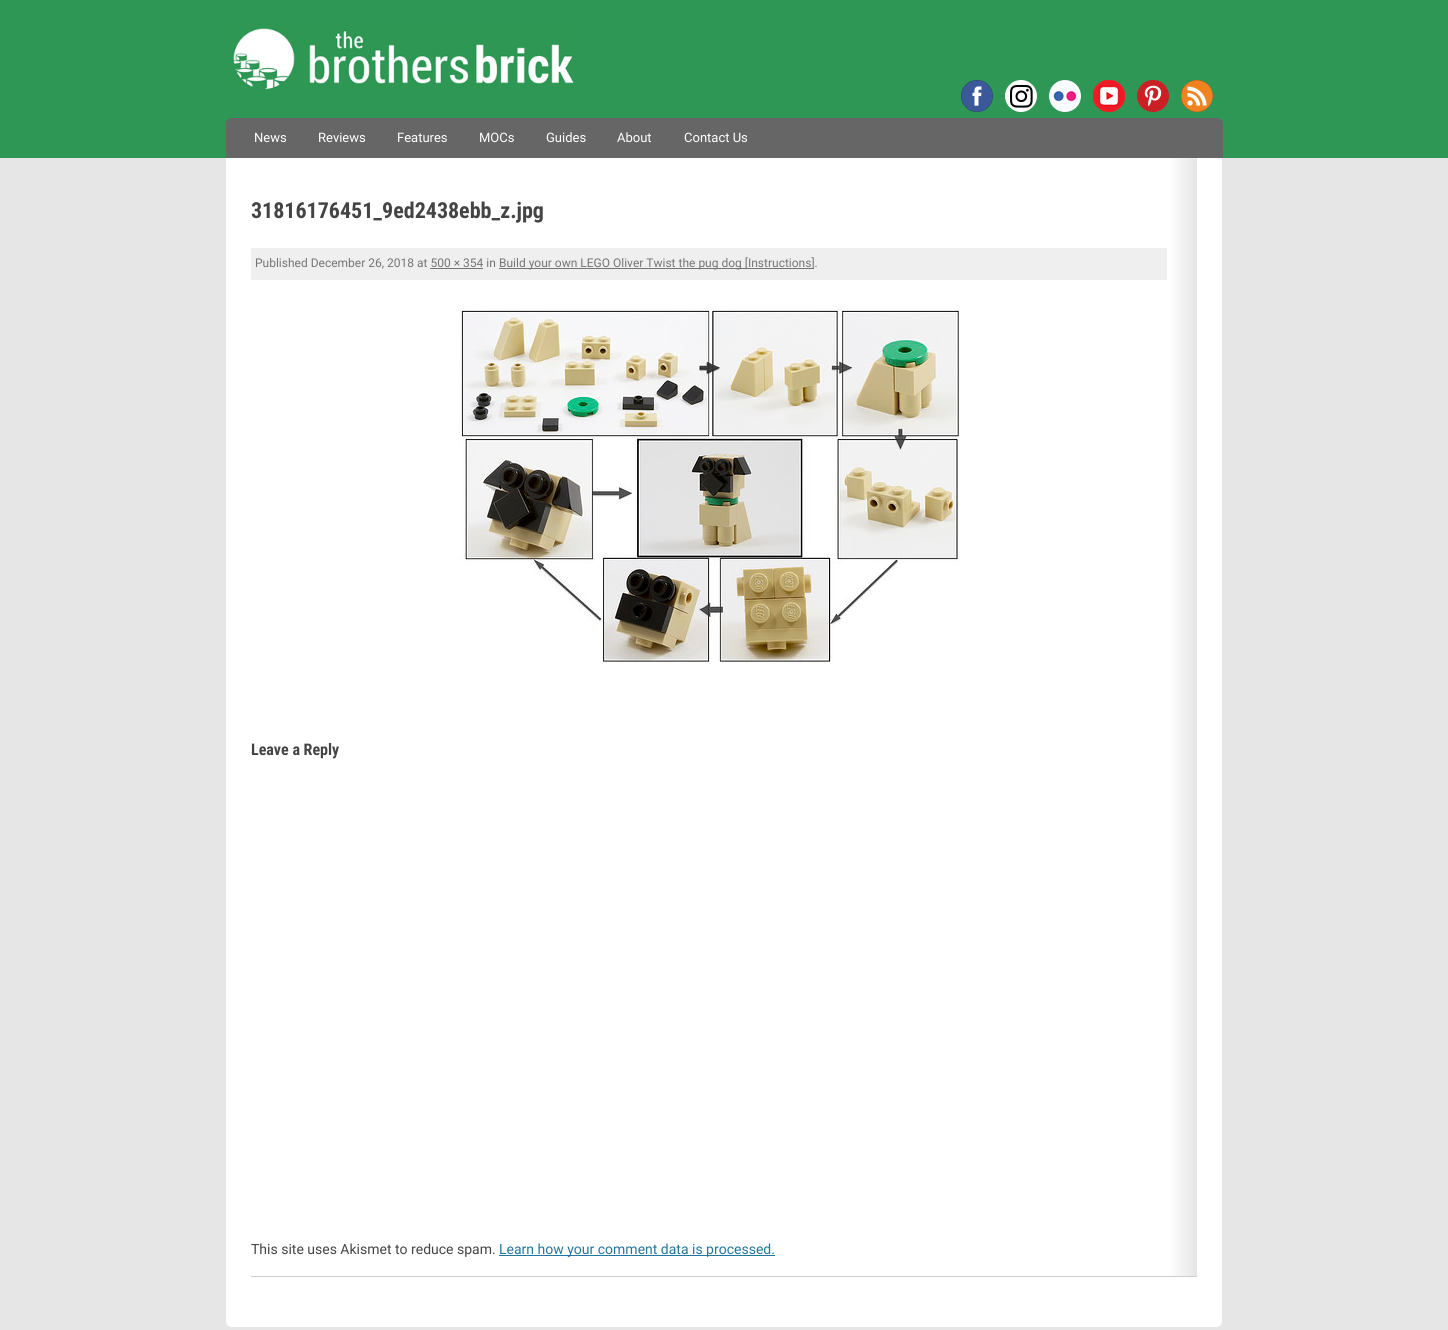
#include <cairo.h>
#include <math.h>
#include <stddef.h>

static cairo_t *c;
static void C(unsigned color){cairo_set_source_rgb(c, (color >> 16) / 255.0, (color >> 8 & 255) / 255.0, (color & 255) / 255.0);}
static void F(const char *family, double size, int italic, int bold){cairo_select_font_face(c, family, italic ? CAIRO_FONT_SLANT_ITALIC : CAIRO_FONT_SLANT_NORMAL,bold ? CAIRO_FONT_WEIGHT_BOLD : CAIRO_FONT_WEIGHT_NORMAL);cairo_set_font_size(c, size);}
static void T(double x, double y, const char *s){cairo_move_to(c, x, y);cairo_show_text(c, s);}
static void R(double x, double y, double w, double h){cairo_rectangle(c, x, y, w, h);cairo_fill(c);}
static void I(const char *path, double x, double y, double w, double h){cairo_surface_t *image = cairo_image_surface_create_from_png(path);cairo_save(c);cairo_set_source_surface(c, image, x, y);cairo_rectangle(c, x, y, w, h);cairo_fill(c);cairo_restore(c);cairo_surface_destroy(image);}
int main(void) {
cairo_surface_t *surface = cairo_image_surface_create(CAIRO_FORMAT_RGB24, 1448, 1330);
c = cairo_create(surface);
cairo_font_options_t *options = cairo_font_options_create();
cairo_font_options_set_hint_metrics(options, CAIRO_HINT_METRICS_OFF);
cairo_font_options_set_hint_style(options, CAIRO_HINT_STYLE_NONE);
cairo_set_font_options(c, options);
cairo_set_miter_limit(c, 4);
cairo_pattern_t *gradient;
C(0xe6e6e6);
cairo_paint(c);
C(0x2e9755);
R(0,0,1448,158);
I("1.png",233,27,341,63);
I("2.png",961,80,32,32);
C(0xffffff);
cairo_arc(c,1021,96,16,0,2 * M_PI);
cairo_fill(c);
I("3.png",1010,84,23,24);
I("4.png",1049,80,32,32);
I("5.png",1093,80,32,32);
I("6.png",1137,80,32,32);
I("7.png",1181,80,32,32);
C(0x666666);
cairo_new_path(c);
cairo_move_to(c,232,118);
cairo_line_to(c,1217,118);
cairo_curve_to(c,1220.5,118,1223,120.5,1223,124);
cairo_line_to(c,1223,158);
cairo_line_to(c,226,158);
cairo_line_to(c,226,124);
cairo_curve_to(c,226,120.5,228.5,118,232,118);
cairo_close_path(c);
cairo_fill(c);
F("Roboto",13,0,0);
C(0xffffff);
T(254,142,"News");
T(318,142,"Reviews");
T(397,142,"Features");
T(479,142,"MOCs");
T(546,142,"Guides");
T(617,142,"About");
T(684,142,"Contact Us");
cairo_new_path(c);
cairo_move_to(c,226,158);
cairo_line_to(c,1222,158);
cairo_line_to(c,1222,1321);
cairo_curve_to(c,1222,1324.5,1219.5,1327,1216,1327);
cairo_line_to(c,232,1327);
cairo_curve_to(c,228.5,1327,226,1324.5,226,1321);
cairo_close_path(c);
cairo_fill(c);
gradient = cairo_pattern_create_linear(251,717,1197,717);
cairo_pattern_add_color_stop_rgba(gradient,.97,1,1,1,1);
cairo_pattern_add_color_stop_rgba(gradient,1,0.898,0.898,0.898,1);
cairo_set_source(c,gradient);
cairo_pattern_destroy(gradient);
R(1171,158,26,1118);
F("Roboto Condensed",22,0,1);
C(0x444444);
T(251,218,"31816176451_9ed2438ebb_z.jpg");
C(0xefefef);
R(251,248,916,32);
F("Roboto",12,0,0);
C(0x757575);
T(255,267,"Published December 26, 2018 at 500 × 354 in");
R(499,268,315,1);
T(499,267,"Build your own LEGO Oliver Twist the pug dog [Instructions].");
R(430,268,53,1);
I("8.png",459,308,500,354);
F("Roboto Condensed",16,0,1);
C(0x444444);
T(251,755,"Leave a Reply");
F("Roboto",14,0,0);
T(251,1254,"This site uses Akismet to reduce spam.");
C(0x21769b);
R(499,1255,276,1);
T(499,1254,"Learn how your comment data is processed.");
C(0xcccccc);
R(251,1276,946,1);
cairo_surface_write_to_png(surface, "o.png");
cairo_font_options_destroy(options);
cairo_destroy(c);
cairo_surface_destroy(surface);
return 0;
}
